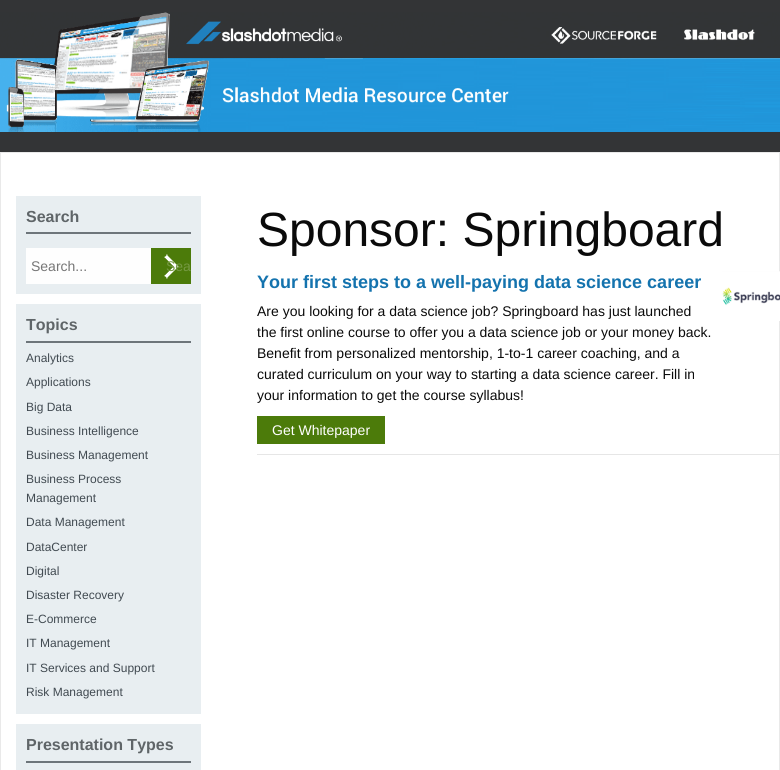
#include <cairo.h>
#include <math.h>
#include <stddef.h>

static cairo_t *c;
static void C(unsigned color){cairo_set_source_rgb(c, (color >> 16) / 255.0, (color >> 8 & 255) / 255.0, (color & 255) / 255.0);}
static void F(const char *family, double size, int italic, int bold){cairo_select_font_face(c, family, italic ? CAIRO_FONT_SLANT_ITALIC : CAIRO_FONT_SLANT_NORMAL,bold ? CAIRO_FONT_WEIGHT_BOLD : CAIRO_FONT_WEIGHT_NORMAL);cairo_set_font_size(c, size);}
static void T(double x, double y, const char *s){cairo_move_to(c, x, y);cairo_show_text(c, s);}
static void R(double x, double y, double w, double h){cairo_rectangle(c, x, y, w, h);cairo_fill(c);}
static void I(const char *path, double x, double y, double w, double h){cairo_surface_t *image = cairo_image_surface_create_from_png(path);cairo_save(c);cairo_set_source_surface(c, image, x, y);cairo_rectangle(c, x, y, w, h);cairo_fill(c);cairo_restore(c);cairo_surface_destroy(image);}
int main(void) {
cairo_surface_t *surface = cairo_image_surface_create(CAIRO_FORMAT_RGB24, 780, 770);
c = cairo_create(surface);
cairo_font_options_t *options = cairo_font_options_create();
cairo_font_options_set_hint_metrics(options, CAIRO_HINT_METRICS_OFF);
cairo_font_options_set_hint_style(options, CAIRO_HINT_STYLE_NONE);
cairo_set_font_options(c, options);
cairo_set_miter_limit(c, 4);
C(0x333436);
cairo_paint(c);
I("1.png",0,12,780,120);
C(0xffffff);
cairo_rectangle(c,.5,152.5,779,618);
cairo_fill_preserve(c);
C(0xe9e9e9);
cairo_set_line_width(c,1);
cairo_stroke(c);
C(0xe8eef1);
R(16,196,185,98);
C(0x6d757a);
R(26,232,165,2);
F("Liberation Sans",16,0,1);
C(0x5f6568);
T(26,222,"Search");
C(0xfefefe);
R(26,248,125,36);
F("Liberation Sans",14,0,0);
C(0x767676);
T(31,271,"Search...");
C(0x4c7b0a);
R(151,248,40,36);
I("2.png",164,254,15,25);
C(0x759942);
T(166,271,"Sea");
C(0xe8eef1);
R(16,304,185,410);
C(0x6d757a);
R(26,341,165,2);
F("Liberation Sans",16,0,1);
C(0x5f6568);
T(26,330,"Topics");
F("Liberation Sans",12,0,0);
C(0x414a51);
T(26,362,"Analytics");
T(26,386,"Applications");
T(26,411,"Big Data");
T(26,435,"Business Intelligence");
T(26,459,"Business Management");
T(26,483,"Business Process");
T(26,502,"Management");
T(26,526,"Data Management");
T(26,551,"DataCenter");
T(26,575,"Digital");
T(26,599,"Disaster Recovery");
T(26,623,"E-Commerce");
T(26,647,"IT Management");
T(26,672,"IT Services and Support");
T(26,696,"Risk Management");
C(0xe8eef1);
R(16,724,185,46);
C(0x6d757a);
R(26,761,165,2);
F("Liberation Sans",16,0,1);
C(0x5f6568);
T(26,750,"Presentation Types");
F("Liberation Sans",48,0,0);
C(0x0a0a0a);
T(257,246,"Sponsor: Springboard");
C(0xe6e6e6);
R(257,454,523,1);
F("Liberation Sans",18,0,1);
C(0x1473ae);
T(257,288,"Your first steps to a well-paying data science career");
F("Liberation Sans",14,0,0);
C(0x0a0a0a);
T(257,316,"Are you looking for a data science job? Springboard has just launched");
T(257,337,"the first online course to offer you a data science job or your money back.");
T(257,358,"Benefit from personalized mentorship, 1-to-1 career coaching, and a");
T(257,379,"curated curriculum on your way to starting a data science career. Fill in");
T(257,400,"your information to get the course syllabus!");
I("3.png",722,271,58,50);
C(0x4c7b0a);
R(257,416,128,28);
C(0xffffff);
T(272,435,"Get Whitepaper");
cairo_surface_write_to_png(surface, "o.png");
cairo_font_options_destroy(options);
cairo_destroy(c);
cairo_surface_destroy(surface);
return 0;
}
